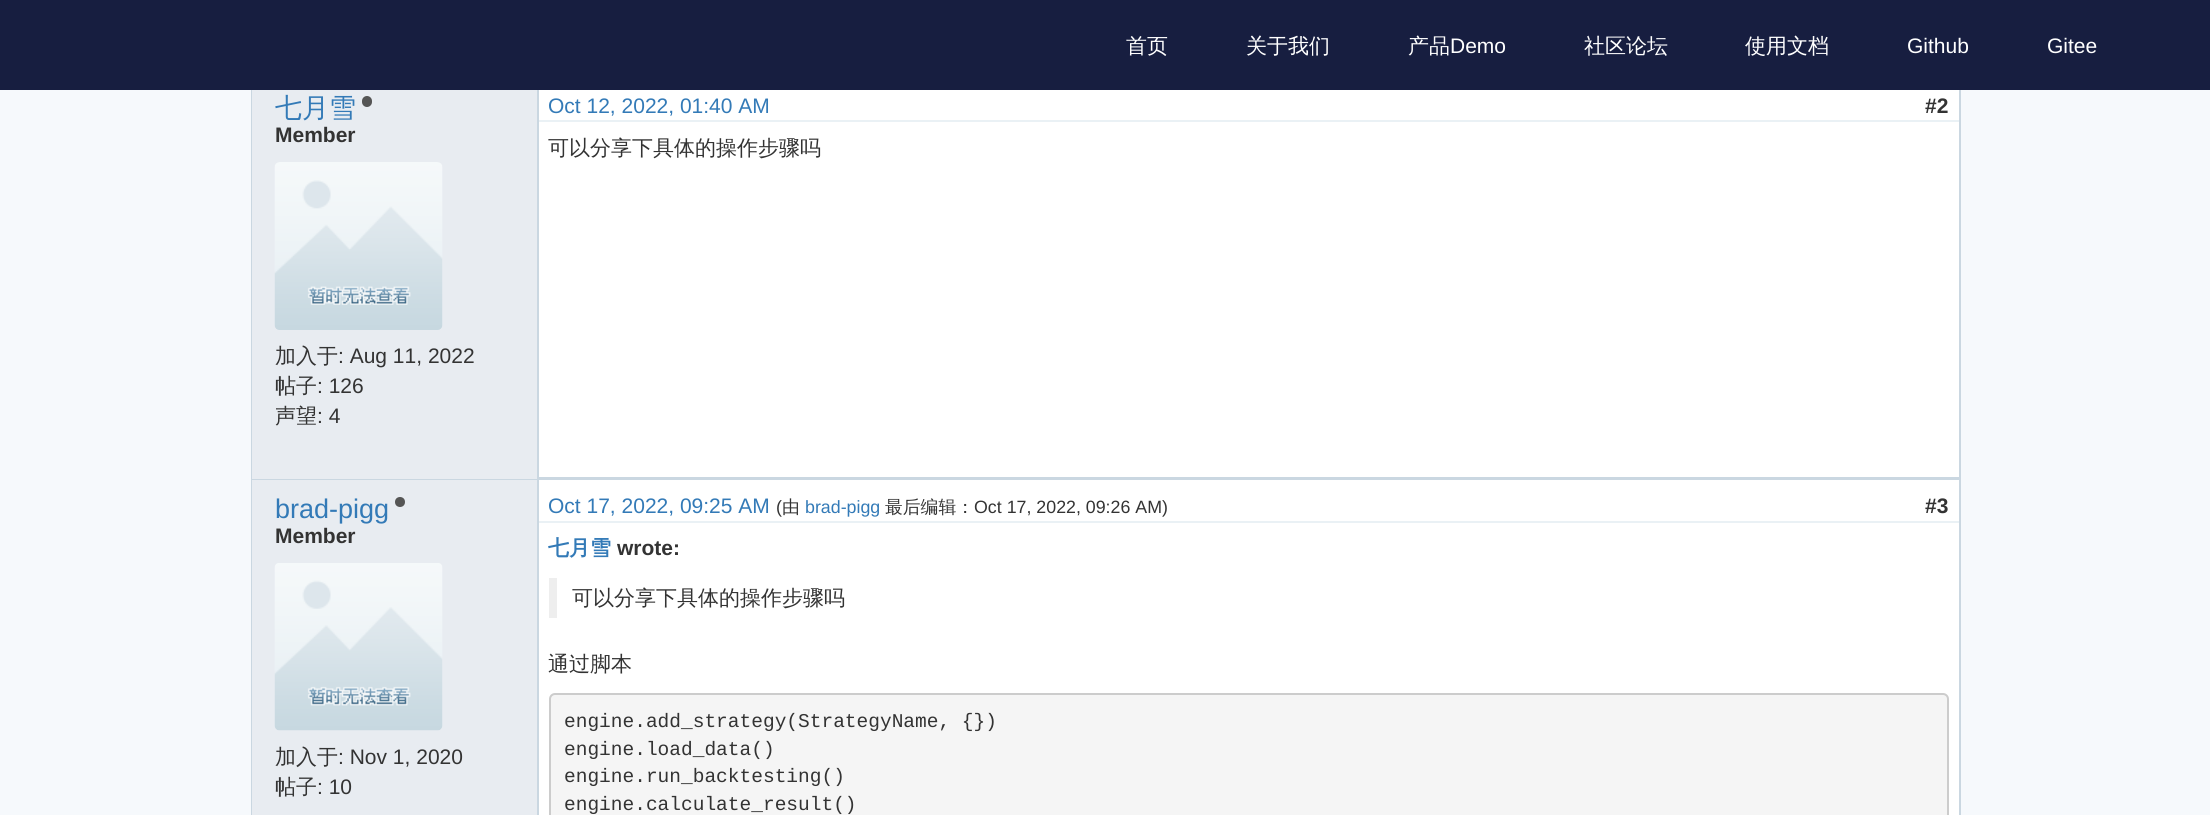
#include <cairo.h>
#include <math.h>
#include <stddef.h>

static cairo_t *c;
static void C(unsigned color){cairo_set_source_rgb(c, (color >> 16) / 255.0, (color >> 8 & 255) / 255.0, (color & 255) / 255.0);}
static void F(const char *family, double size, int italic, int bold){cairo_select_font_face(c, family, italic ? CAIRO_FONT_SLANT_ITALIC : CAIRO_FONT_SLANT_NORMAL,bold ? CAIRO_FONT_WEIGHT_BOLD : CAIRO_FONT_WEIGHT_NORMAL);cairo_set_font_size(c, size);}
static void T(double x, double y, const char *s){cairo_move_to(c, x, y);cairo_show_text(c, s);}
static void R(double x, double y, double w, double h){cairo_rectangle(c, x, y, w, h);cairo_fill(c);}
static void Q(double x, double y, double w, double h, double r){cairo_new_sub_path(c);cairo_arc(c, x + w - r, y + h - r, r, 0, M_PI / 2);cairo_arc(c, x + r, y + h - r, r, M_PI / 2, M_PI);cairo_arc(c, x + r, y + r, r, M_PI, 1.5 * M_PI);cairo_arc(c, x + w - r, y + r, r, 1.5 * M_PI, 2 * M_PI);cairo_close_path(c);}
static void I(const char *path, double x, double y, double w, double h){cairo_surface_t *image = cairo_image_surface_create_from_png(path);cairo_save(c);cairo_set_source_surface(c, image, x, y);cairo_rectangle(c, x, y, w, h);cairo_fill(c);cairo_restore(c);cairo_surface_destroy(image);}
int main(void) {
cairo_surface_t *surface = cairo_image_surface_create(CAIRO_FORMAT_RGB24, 2210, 815);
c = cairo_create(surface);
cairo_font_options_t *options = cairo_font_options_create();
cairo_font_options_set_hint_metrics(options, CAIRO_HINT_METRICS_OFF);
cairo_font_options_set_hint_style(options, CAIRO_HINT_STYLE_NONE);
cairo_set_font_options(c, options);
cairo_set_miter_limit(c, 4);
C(0xf6f9fc);
cairo_paint(c);
cairo_rectangle(c,252,-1,1708,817);
C(0xcad7e1);
cairo_stroke(c);
C(0x171e40);
R(0,0,2210,90);
F("WenQuanYi Zen Hei Medium",21,0,0);
C(0xffffff);
T(1126,53,"首页");
T(1246,53,"关于我们");
T(1408,53,"产品");
F("Liberation Sans",21,0,0);
T(1450,53,"Demo");
F("WenQuanYi Zen Hei Medium",21,0,0);
T(1584,53,"社区论坛");
T(1745,53,"使用文档");
F("Liberation Sans",21,0,0);
T(1907,53,"Github");
T(2047,53,"Gitee");
C(0xe8ecf1);
R(252,90,285,389);
C(0xcad7e1);
R(252,479,1707,1);
F("WenQuanYi Zen Hei Medium",27,0,0);
C(0x337ab7);
T(275,117,"七月雪");
C(0x555555);
Q(362,96,10,11,5);
cairo_fill(c);
F("Liberation Sans",21,0,1);
C(0x333333);
T(275,142,"Member");
I("1.png",274,162,169,168);
F("WenQuanYi Zen Hei Medium",21,0,0);
T(275,363,"加入于");
F("Liberation Sans",21,0,0);
T(338,363,": Aug 11, 2022");
F("WenQuanYi Zen Hei Medium",21,0,0);
T(275,393,"帖子");
F("Liberation Sans",21,0,0);
T(317,393,": 126");
F("WenQuanYi Zen Hei Medium",21,0,0);
T(275,423,"声望");
F("Liberation Sans",21,0,0);
T(317,423,": 4");
C(0xffffff);
R(539,90,1420,387);
C(0xcad7e1);
R(537,90,2,389);
C(0xeaf1f5);
R(539,120,1420,2);
C(0x337ab7);
T(548,113,"Oct 12, 2022, 01:40 AM");
F("Liberation Sans",21,0,1);
C(0x333333);
T(1925,113,"#2");
F("WenQuanYi Zen Hei Medium",21,0,0);
T(548,155,"可以分享下具体的操作步骤吗");
C(0xcad7e1);
R(539,477,1420,2);
C(0xe8ecf1);
R(252,480,285,335);
F("Liberation Sans",27,0,0);
C(0x337ab7);
T(275,518,"brad-pigg");
C(0x555555);
cairo_new_path(c);
cairo_arc(c,400,502,5,0,2 * M_PI);
cairo_fill(c);
F("Liberation Sans",21,0,1);
C(0x333333);
T(275,543,"Member");
I("2.png",274,563,169,168);
F("WenQuanYi Zen Hei Medium",21,0,0);
T(275,764,"加入于");
F("Liberation Sans",21,0,0);
T(338,764,": Nov 1, 2020");
F("WenQuanYi Zen Hei Medium",21,0,0);
T(275,794,"帖子");
F("Liberation Sans",21,0,0);
T(317,794,": 10");
C(0xffffff);
R(539,480,1420,335);
C(0xcad7e1);
R(537,480,2,335);
C(0xeaf1f5);
R(539,521,1420,2);
C(0x337ab7);
T(548,513,"Oct 17, 2022, 09:25 AM");
F("Liberation Sans",17.8,0,0);
C(0x333333);
T(776,513,"(");
F("WenQuanYi Zen Hei Medium",17.8,0,0);
T(782,513,"由");
F("Liberation Sans",17.8,0,0);
C(0x337ab7);
T(805,513,"brad-pigg");
F("WenQuanYi Zen Hei Medium",17.8,0,0);
C(0x333333);
T(885,513,"最后编辑：");
F("Liberation Sans",17.8,0,0);
T(974,513,"Oct 17, 2022, 09:26 AM)");
F("Liberation Sans",21,0,1);
T(1925,513,"#3");
F("WenQuanYi Zen Hei",21,0,1);
C(0x337ab7);
T(548,555,"七月雪");
F("Liberation Sans",21,0,1);
C(0x333333);
T(617,555,"wrote:");
C(0xeeeeee);
R(549,578,8,40);
F("WenQuanYi Zen Hei Medium",21,0,0);
C(0x333333);
T(572,605,"可以分享下具体的操作步骤吗");
T(548,671,"通过脚本");
C(0xf5f5f5);
Q(550,694,1398,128,5);
cairo_fill_preserve(c);
C(0xcccccc);
cairo_stroke(c);
F("Liberation Mono",19.5,0,0);
C(0x333333);
T(564,727,"engine.add_strategy(StrategyName, {})");
T(564,755,"engine.load_data()");
T(564,782,"engine.run_backtesting()");
T(564,810,"engine.calculate_result()");
cairo_surface_write_to_png(surface, "o.png");
cairo_font_options_destroy(options);
cairo_destroy(c);
cairo_surface_destroy(surface);
return 0;
}
